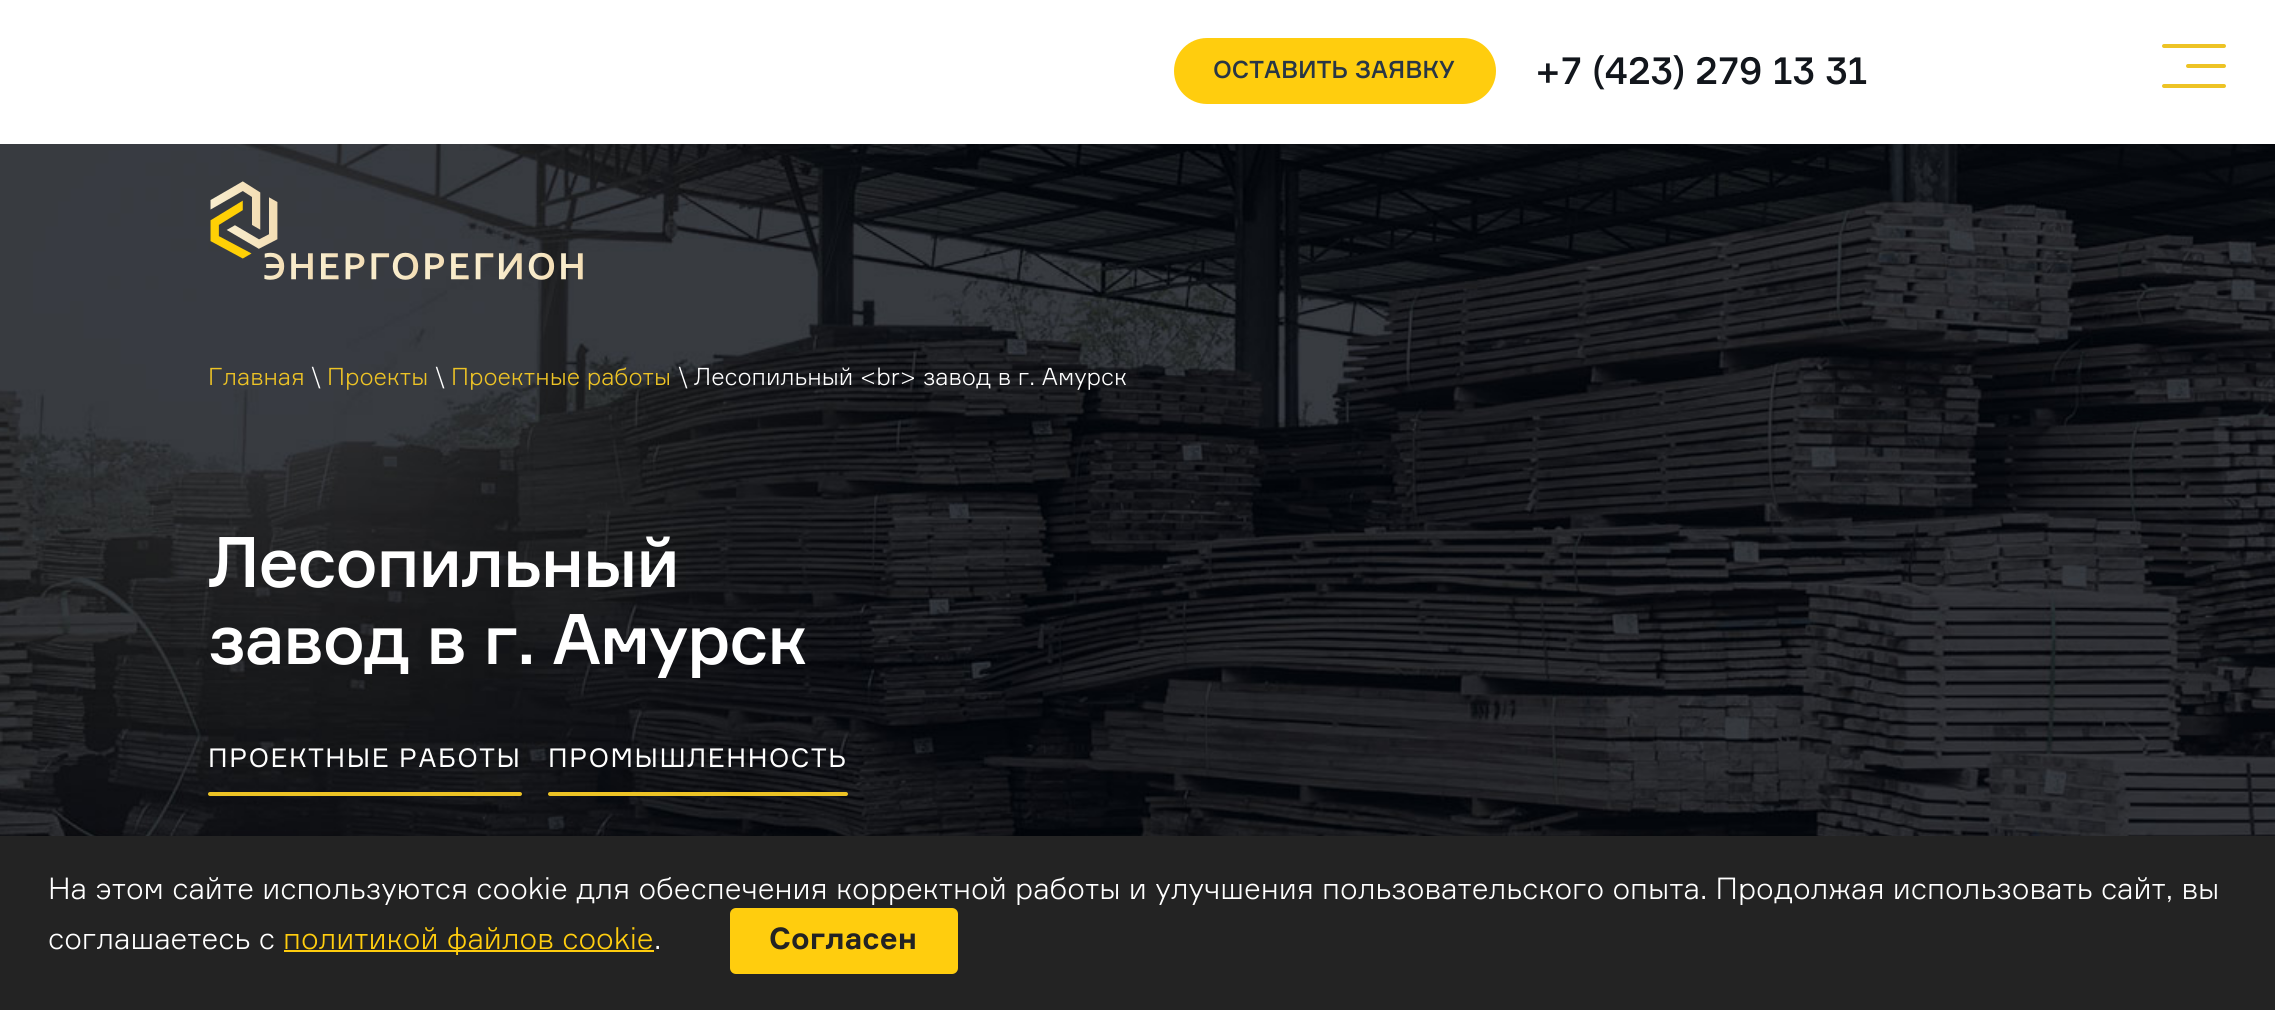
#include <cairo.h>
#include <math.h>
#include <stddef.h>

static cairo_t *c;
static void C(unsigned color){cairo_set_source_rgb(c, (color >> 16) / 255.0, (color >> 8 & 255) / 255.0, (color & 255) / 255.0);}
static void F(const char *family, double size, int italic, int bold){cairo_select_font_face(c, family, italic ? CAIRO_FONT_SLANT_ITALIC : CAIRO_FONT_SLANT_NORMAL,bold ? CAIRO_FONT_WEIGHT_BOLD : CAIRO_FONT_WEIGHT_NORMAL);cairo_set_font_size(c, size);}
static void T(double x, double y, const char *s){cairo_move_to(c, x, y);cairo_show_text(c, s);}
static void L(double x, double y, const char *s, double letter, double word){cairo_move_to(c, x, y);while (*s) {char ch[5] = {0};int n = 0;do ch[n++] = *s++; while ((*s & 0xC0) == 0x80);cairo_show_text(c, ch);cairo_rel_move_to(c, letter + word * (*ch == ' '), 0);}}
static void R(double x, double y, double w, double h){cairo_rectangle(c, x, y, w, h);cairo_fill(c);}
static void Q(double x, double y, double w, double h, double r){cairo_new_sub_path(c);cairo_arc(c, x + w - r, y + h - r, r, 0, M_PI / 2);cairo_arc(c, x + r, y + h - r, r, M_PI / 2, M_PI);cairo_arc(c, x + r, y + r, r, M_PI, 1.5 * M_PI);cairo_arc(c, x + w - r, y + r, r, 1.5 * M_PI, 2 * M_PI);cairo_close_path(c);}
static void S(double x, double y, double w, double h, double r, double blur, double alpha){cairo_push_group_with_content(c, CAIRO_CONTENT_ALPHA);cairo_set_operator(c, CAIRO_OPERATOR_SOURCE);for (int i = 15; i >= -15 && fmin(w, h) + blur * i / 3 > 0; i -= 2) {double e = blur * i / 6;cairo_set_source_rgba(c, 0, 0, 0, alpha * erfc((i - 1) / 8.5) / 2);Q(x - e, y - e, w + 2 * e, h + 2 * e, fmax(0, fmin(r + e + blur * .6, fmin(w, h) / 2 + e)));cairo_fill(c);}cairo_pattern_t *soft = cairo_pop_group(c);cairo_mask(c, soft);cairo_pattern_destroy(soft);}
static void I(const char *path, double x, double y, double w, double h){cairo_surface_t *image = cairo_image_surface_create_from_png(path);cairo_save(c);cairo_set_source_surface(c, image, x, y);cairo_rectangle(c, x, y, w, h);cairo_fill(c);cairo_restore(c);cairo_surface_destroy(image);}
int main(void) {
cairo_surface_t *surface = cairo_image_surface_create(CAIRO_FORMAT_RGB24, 2275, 1010);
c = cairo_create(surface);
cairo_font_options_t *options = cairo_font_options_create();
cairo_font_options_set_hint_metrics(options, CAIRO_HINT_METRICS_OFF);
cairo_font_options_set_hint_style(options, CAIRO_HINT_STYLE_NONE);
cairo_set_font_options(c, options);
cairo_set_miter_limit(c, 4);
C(0xffffff);
cairo_paint(c);
C(0xffcd0e);
Q(1174,38,322,66,33);
cairo_fill(c);
F("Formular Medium",24,0,0);
C(0x293645);
T(1213,78,"ОСТАВИТЬ ЗАЯВКУ");
F("Formular Medium",38,0,0);
C(0x12161c);
T(1535,84,"+7 (423) 279 13 31");
C(0xedc325);
Q(2186,64,40,4,2);
cairo_fill(c);
Q(2162,44,64,4,2);
cairo_fill(c);
Q(2162,84,64,4,2);
cairo_fill(c);
I("1.png",0,144,2275,692);
I("2.png",210,181,373,99);
F("Formular Light",24,0,0);
T(208,385,"Главная");
C(0xffffff);
T(311,385,"\\");
C(0xedc325);
T(327,385,"Проекты");
C(0xffffff);
T(435,385,"\\");
C(0xedc325);
T(451,385,"Проектные работы");
C(0xffffff);
T(678,385,"\\ Лесопильный <br> завод в г. Амурск");
F("Formular Medium",70,0,0);
L(208,587,"Лесопильный",-1.75,0);
L(208,664,"завод в г. Амурск",-1.75,0);
F("Formular",26,0,0);
L(208,767,"ПРОЕКТНЫЕ РАБОТЫ",1.6,0);
C(0xedc325);
Q(208,792,314,4,2);
cairo_fill(c);
C(0xffffff);
L(548,767,"ПРОМЫШЛЕННОСТЬ",1.6,0);
C(0xedc325);
Q(548,792,300,4,2);
cairo_fill(c);
C(0x000000);
S(0,836,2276,174,0,10,.1);
C(0x232323);
R(0,836,2275,174);
F("Formular Light",30,0,0);
C(0xffffff);
T(48,899,"На этом сайте используются cookie для обеспечения корректной работы и улучшения пользовательского опыта. Продолжая использовать сайт, вы");
T(48,949,"соглашаетесь с");
C(0xffcd0e);
R(284,950,370,2);
T(283,949,"политикой файлов cookie");
C(0xffffff);
T(654,949,".");
C(0xffcd0e);
Q(730,908,228,66,6);
cairo_fill(c);
F("Formular",30,0,1);
C(0x232323);
T(769,949,"Согласен");
cairo_surface_write_to_png(surface, "o.png");
cairo_font_options_destroy(options);
cairo_destroy(c);
cairo_surface_destroy(surface);
return 0;
}
